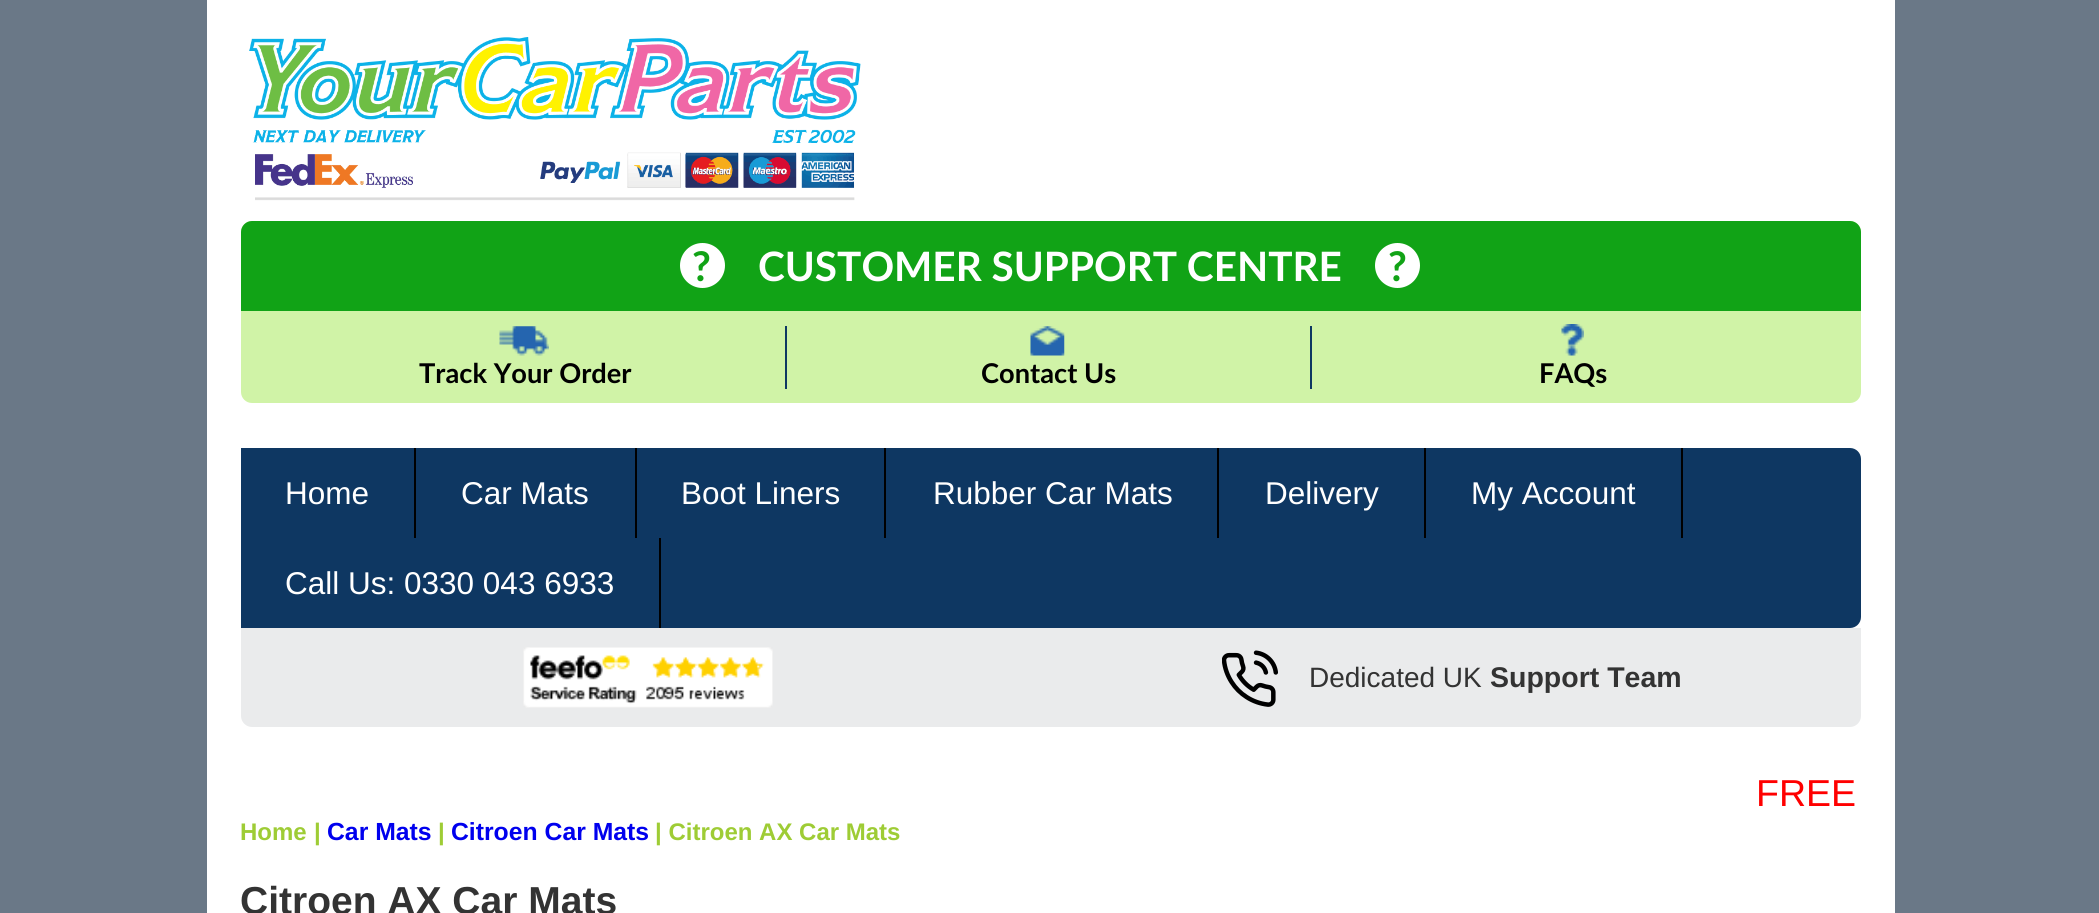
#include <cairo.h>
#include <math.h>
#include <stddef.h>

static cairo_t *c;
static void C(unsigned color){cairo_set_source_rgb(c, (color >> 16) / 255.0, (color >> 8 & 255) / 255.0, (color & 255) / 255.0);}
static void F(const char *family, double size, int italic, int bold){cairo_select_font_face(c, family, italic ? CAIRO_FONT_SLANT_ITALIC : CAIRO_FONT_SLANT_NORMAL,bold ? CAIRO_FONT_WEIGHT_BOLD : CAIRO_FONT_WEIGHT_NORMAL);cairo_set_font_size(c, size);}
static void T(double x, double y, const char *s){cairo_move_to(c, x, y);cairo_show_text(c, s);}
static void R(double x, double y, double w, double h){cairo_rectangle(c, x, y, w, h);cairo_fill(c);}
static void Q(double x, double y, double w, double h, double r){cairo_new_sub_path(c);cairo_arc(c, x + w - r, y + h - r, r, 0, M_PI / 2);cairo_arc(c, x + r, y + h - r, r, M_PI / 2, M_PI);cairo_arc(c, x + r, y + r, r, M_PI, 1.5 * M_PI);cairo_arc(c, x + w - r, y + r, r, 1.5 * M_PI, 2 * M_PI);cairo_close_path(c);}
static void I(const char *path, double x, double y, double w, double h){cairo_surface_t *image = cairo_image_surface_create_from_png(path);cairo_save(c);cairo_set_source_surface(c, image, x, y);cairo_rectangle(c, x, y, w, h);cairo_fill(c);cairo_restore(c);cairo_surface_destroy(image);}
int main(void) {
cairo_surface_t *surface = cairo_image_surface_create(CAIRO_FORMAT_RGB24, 2099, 913);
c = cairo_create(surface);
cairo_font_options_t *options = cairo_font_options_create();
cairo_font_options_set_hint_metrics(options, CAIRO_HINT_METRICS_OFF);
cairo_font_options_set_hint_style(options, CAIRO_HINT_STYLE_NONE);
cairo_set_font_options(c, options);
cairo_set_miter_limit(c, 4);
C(0x6a7887);
cairo_paint(c);
C(0xffffff);
R(207,0,1688,913);
I("1.png",249,37,612,164);
C(0xd0f3a7);
Q(241,221,1620,182,11);
cairo_fill(c);
C(0x11a316);
cairo_new_path(c);
cairo_move_to(c,252,221);
cairo_line_to(c,1850,221);
cairo_curve_to(c,1856,221,1861,226,1861,232);
cairo_line_to(c,1861,311);
cairo_line_to(c,241,311);
cairo_line_to(c,241,232);
cairo_curve_to(c,241,226,246,221,252,221);
cairo_close_path(c);
cairo_fill(c);
C(0xffffff);
cairo_arc(c,702.5,265.5,22.5,0,2 * M_PI);
cairo_fill(c);
F("Lato",41,0,1);
C(0x11a316);
T(692,281,"?");
F("Lato",40.5,0,1);
C(0xffffff);
T(758,281,"CUSTOMER SUPPORT CENTRE");
cairo_new_path(c);
cairo_arc(c,1397.5,265.5,22.5,0,2 * M_PI);
cairo_fill(c);
F("Lato",41,0,1);
C(0x11a316);
T(1388,281,"?");
C(0x0e3762);
R(785,326,2,63);
I("2.png",499,326,50,30);
F("Lato",27.25,0,1);
C(0x000000);
T(419,383,"Track Your Order");
C(0x0e3762);
R(1310,326,2,63);
I("3.png",1030,326,35,30);
C(0x000000);
T(981,383,"Contact Us");
I("4.png",1561,324,23,32);
T(1539,383,"FAQs");
C(0x0e3762);
Q(241,448,1620,180,11);
cairo_fill(c);
R(241,448,11,11);
C(0x000000);
R(414,448,2,90);
F("Liberation Sans",31.5,0,0);
C(0xffffff);
T(285,504,"Home");
C(0x000000);
R(635,448,2,90);
C(0xffffff);
T(461,504,"Car Mats");
C(0x000000);
R(884,448,2,90);
C(0xffffff);
T(681,504,"Boot Liners");
C(0x000000);
R(1217,448,2,90);
C(0xffffff);
T(933,504,"Rubber Car Mats");
C(0x000000);
R(1424,448,2,90);
C(0xffffff);
T(1265,504,"Delivery");
C(0x000000);
R(1681,448,2,90);
C(0xffffff);
T(1471,504,"My Account");
C(0x0e3762);
R(241,617,11,11);
C(0x000000);
R(659,538,2,90);
C(0xffffff);
T(285,594,"Call Us: 0330 043 6933");
C(0xeaebec);
cairo_new_path(c);
cairo_move_to(c,241,628);
cairo_line_to(c,1861,628);
cairo_line_to(c,1861,716);
cairo_curve_to(c,1861,722,1856,727,1850,727);
cairo_line_to(c,252,727);
cairo_curve_to(c,246,727,241,722,241,716);
cairo_close_path(c);
cairo_fill(c);
I("5.png",523,647,250,61);
I("6.png",1222,650,56,57);
F("Liberation Sans",28,0,0);
C(0x333333);
T(1309,687,"Dedicated UK");
F("Liberation Sans",28.5,0,1);
T(1490,687,"Support Team");
F("Liberation Sans",37.5,0,0);
C(0xff0000);
T(1756,806,"FREE");
F("Liberation Sans",24,0,1);
C(0x9ecc35);
T(240,840,"Home");
T(314,840,"|");
F("Liberation Sans",24.75,0,1);
C(0x0000ee);
T(327,840,"Car Mats");
F("Liberation Sans",24,0,1);
C(0x9ecc35);
T(438,840,"|");
F("Liberation Sans",24.75,0,1);
C(0x0000ee);
T(451,840,"Citroen Car Mats");
F("Liberation Sans",24,0,1);
C(0x9ecc35);
T(655,840,"| Citroen AX Car Mats");
F("Liberation Sans",39,0,1);
C(0x333333);
T(240,914,"Citroen AX Car Mats");
cairo_surface_write_to_png(surface, "o.png");
cairo_font_options_destroy(options);
cairo_destroy(c);
cairo_surface_destroy(surface);
return 0;
}
